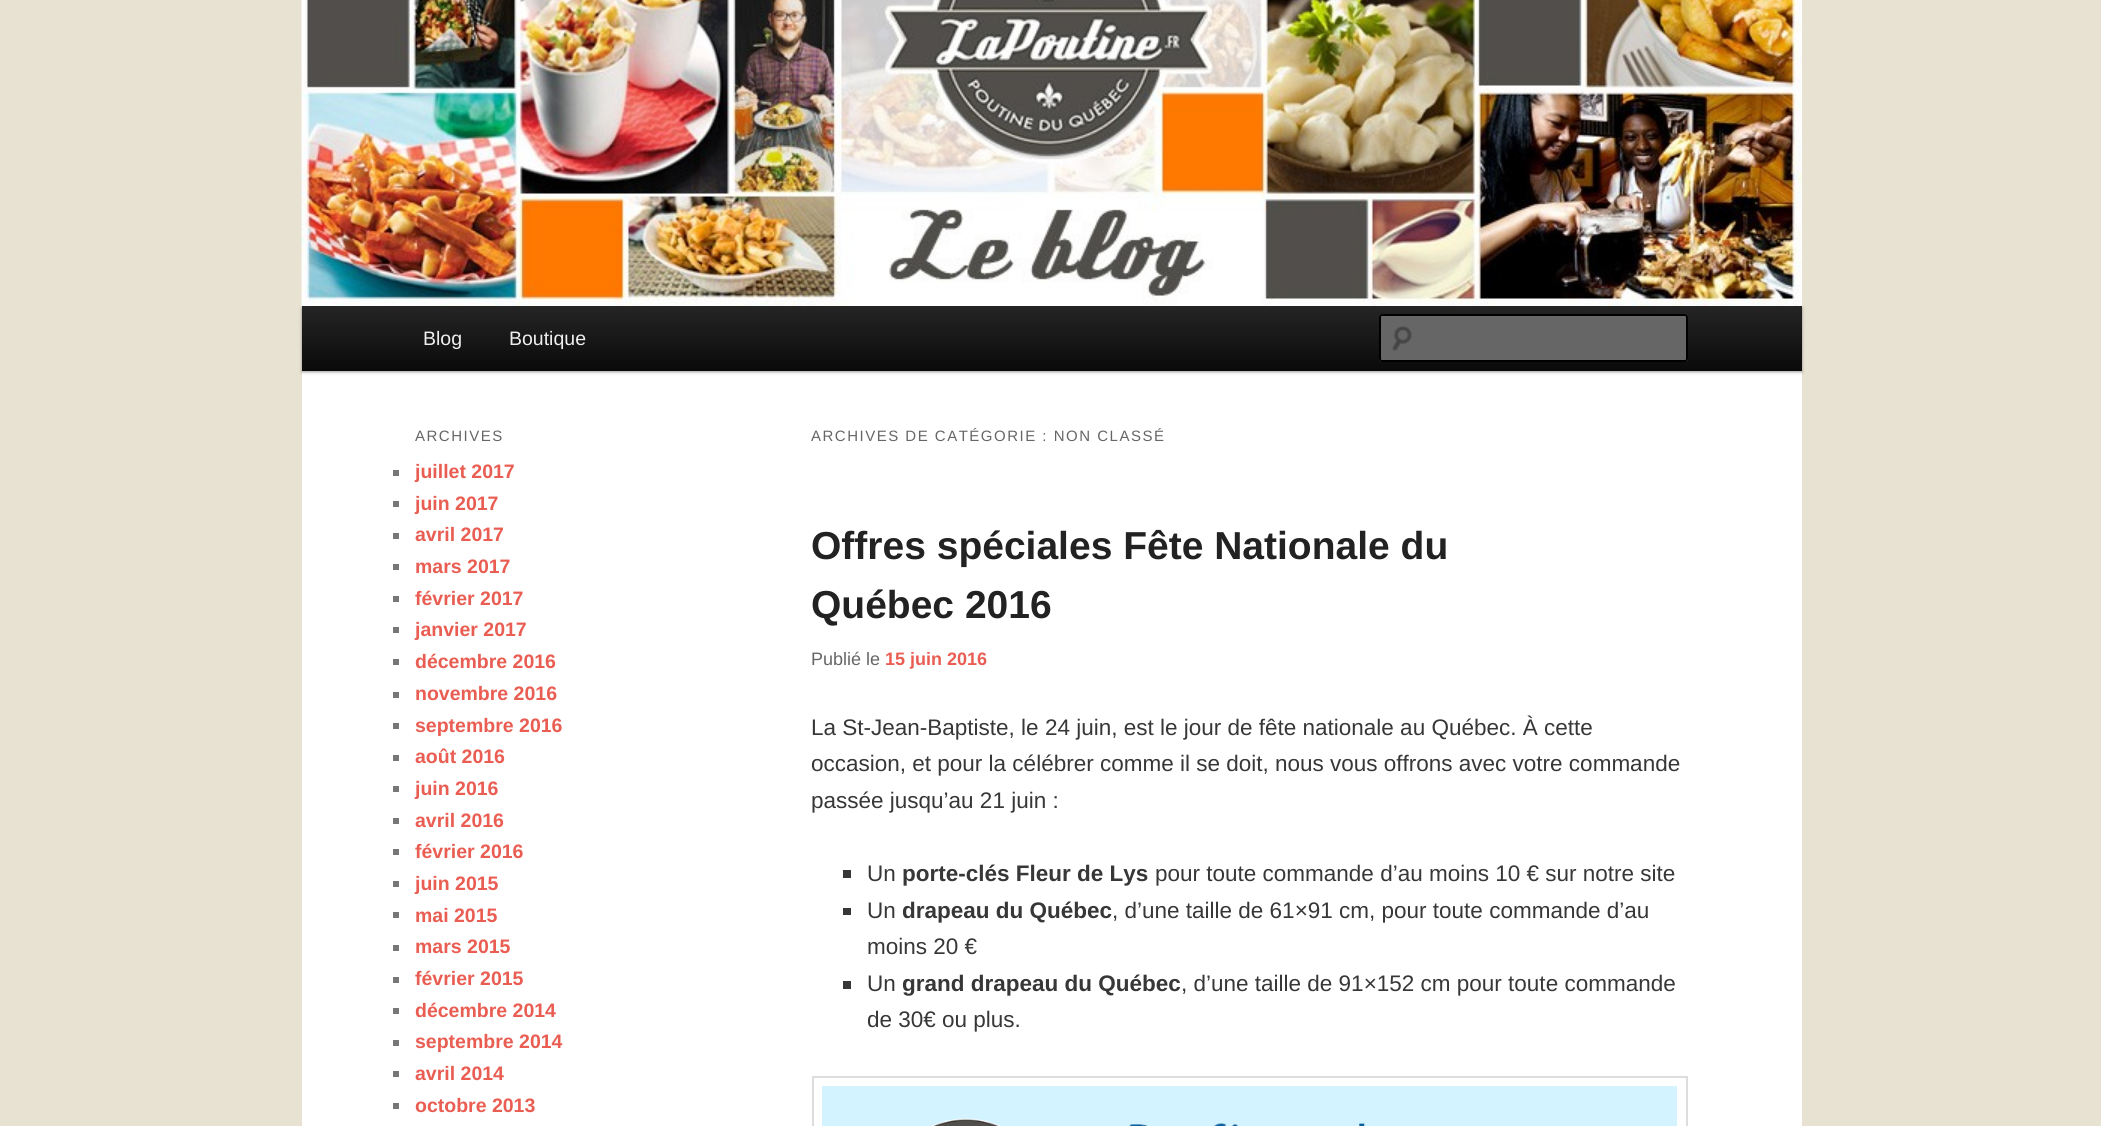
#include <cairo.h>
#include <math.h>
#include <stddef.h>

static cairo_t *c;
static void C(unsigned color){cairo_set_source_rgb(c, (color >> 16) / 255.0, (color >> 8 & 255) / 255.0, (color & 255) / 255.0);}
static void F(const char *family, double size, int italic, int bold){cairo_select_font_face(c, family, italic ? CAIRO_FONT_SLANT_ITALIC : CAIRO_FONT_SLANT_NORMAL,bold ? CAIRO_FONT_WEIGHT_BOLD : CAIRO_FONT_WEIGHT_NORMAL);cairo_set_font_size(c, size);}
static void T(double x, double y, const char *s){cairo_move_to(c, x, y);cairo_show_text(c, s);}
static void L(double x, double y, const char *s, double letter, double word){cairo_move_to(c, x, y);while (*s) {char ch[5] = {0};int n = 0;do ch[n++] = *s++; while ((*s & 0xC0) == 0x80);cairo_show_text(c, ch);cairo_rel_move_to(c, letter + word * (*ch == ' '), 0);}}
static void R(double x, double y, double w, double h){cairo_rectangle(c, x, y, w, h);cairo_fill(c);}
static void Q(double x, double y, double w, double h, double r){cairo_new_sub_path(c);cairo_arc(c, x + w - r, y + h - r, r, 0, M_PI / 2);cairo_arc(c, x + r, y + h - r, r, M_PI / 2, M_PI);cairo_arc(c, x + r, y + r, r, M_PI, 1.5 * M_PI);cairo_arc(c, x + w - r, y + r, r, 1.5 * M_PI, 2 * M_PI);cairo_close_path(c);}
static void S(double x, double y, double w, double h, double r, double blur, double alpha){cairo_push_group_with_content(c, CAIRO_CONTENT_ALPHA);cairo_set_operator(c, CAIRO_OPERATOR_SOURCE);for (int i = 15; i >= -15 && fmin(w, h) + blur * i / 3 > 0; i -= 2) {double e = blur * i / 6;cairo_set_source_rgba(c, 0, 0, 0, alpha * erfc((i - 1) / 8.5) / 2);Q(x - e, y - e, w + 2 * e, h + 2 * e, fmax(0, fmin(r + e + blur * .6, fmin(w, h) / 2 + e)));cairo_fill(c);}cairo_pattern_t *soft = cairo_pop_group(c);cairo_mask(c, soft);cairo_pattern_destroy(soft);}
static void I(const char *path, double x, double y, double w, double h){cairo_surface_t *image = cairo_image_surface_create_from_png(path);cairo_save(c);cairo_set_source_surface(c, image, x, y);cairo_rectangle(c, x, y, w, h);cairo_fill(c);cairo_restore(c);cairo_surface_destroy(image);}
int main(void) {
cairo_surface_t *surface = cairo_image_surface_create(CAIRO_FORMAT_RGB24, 2101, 1126);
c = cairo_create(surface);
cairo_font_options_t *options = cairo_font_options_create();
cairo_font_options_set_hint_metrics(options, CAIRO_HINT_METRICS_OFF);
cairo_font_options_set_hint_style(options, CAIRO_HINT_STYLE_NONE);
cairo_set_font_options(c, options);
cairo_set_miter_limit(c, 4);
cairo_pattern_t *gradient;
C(0xe8e2d2);
cairo_paint(c);
C(0xffffff);
R(302,0,1500,1126);
C(0x000000);
S(302,308,1500,64,0,1.5,.4);
I("1.png",301,0,1501,306);
gradient = cairo_pattern_create_linear(1052,306,1052,371);
cairo_pattern_add_color_stop_rgba(gradient,0,0.145,0.145,0.145,1);
cairo_pattern_add_color_stop_rgba(gradient,1,0.039,0.039,0.039,1);
cairo_set_source(c,gradient);
cairo_pattern_destroy(gradient);
R(302,306,1500,65);
F("Liberation Sans",19.5,0,0);
C(0xeeeeee);
T(423,345,"Blog");
T(509,345,"Boutique");
C(0x666666);
Q(1379,314,309,48,3);
cairo_fill(c);
I("2.png",1392,326,20,25);
C(0x5c5c5c);
cairo_new_path(c);
cairo_move_to(c,1382,316);
cairo_line_to(c,1684,316);
cairo_curve_to(c,1685,316,1686,317,1686,318);
cairo_curve_to(c,1686,317,1686,315,1684,315);
cairo_line_to(c,1382,315);
cairo_line_to(c,1380,316);
cairo_line_to(c,1380,318);
cairo_curve_to(c,1380,317,1381,316,1382,316);
cairo_close_path(c);
cairo_fill(c);
Q(1380,315,307,46,2);
C(0x000000);
cairo_stroke(c);
F("Liberation Sans",15,0,0);
C(0x666666);
L(415,441,"ARCHIVES",1.5,0);
C(0x777777);
R(393,470,6,6);
F("Liberation Sans",19.5,0,1);
C(0xe95d52);
T(415,478,"juillet 2017");
C(0x777777);
R(393,501,6,6);
C(0xe95d52);
T(415,510,"juin 2017");
C(0x777777);
R(393,533,6,6);
C(0xe95d52);
T(415,541,"avril 2017");
C(0x777777);
R(393,564,6,6);
C(0xe95d52);
T(415,573,"mars 2017");
C(0x777777);
R(393,596,6,6);
C(0xe95d52);
T(415,605,"février 2017");
C(0x777777);
R(393,627,6,6);
C(0xe95d52);
T(415,636,"janvier 2017");
C(0x777777);
R(393,659,6,6);
C(0xe95d52);
T(415,668,"décembre 2016");
C(0x777777);
R(393,692,6,6);
C(0xe95d52);
T(415,700,"novembre 2016");
C(0x777777);
R(393,723,6,6);
C(0xe95d52);
T(415,732,"septembre 2016");
C(0x777777);
R(393,755,6,6);
C(0xe95d52);
T(415,763,"août 2016");
C(0x777777);
R(393,786,6,6);
C(0xe95d52);
T(415,795,"juin 2016");
C(0x777777);
R(393,818,6,6);
C(0xe95d52);
T(415,827,"avril 2016");
C(0x777777);
R(393,849,6,6);
C(0xe95d52);
T(415,858,"février 2016");
C(0x777777);
R(393,881,6,6);
C(0xe95d52);
T(415,890,"juin 2015");
C(0x777777);
R(393,912,6,6);
C(0xe95d52);
T(415,922,"mai 2015");
C(0x777777);
R(393,945,6,6);
C(0xe95d52);
T(415,953,"mars 2015");
C(0x777777);
R(393,977,6,6);
C(0xe95d52);
T(415,985,"février 2015");
C(0x777777);
R(393,1008,6,6);
C(0xe95d52);
T(415,1017,"décembre 2014");
C(0x777777);
R(393,1040,6,6);
C(0xe95d52);
T(415,1048,"septembre 2014");
C(0x777777);
R(393,1071,6,6);
C(0xe95d52);
T(415,1080,"avril 2014");
C(0x777777);
R(393,1103,6,6);
C(0xe95d52);
T(415,1112,"octobre 2013");
F("Liberation Sans",15,0,0);
C(0x666666);
L(811,441,"ARCHIVES DE CATÉGORIE : NON CLASSÉ",1.5,0);
F("Liberation Sans",39,0,1);
C(0x222222);
T(811,559,"Offres spéciales Fête Nationale du");
T(811,618,"Québec 2016");
F("Liberation Sans",18,0,0);
C(0x666666);
T(811,665,"Publié le");
F("Liberation Sans",18,0,1);
C(0xe95d52);
T(885,665,"15 juin 2016");
F("Liberation Sans",22.5,0,0);
C(0x373737);
T(811,735,"La St-Jean-Baptiste, le 24 juin, est le jour de fête nationale au Québec. À cette");
T(811,771,"occasion, et pour la célébrer comme il se doit, nous vous offrons avec votre commande");
T(811,808,"passée jusqu’au 21 juin :");
R(843,870,8,8);
T(867,881,"Un");
F("Liberation Sans",22.5,0,1);
T(902,881,"porte-clés Fleur de Lys");
F("Liberation Sans",22.5,0,0);
T(1155,881,"pour toute commande d’au moins 10 € sur notre site");
R(843,908,8,7);
T(867,918,"Un");
F("Liberation Sans",22.5,0,1);
T(902,918,"drapeau du Québec");
F("Liberation Sans",22.5,0,0);
T(1112,918,", d’une taille de 61×91 cm, pour toute commande d’au");
T(867,954,"moins 20 €");
R(843,981,8,8);
T(867,991,"Un");
F("Liberation Sans",22.5,0,1);
T(902,991,"grand drapeau du Québec");
F("Liberation Sans",22.5,0,0);
T(1181,991,", d’une taille de 91×152 cm pour toute commande");
T(867,1027,"de 30€ ou plus.");
cairo_rectangle(c,813,1077,874,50);
C(0xdddddd);
cairo_stroke(c);
I("3.png",822,1086,855,40);
cairo_surface_write_to_png(surface, "o.png");
cairo_font_options_destroy(options);
cairo_destroy(c);
cairo_surface_destroy(surface);
return 0;
}
